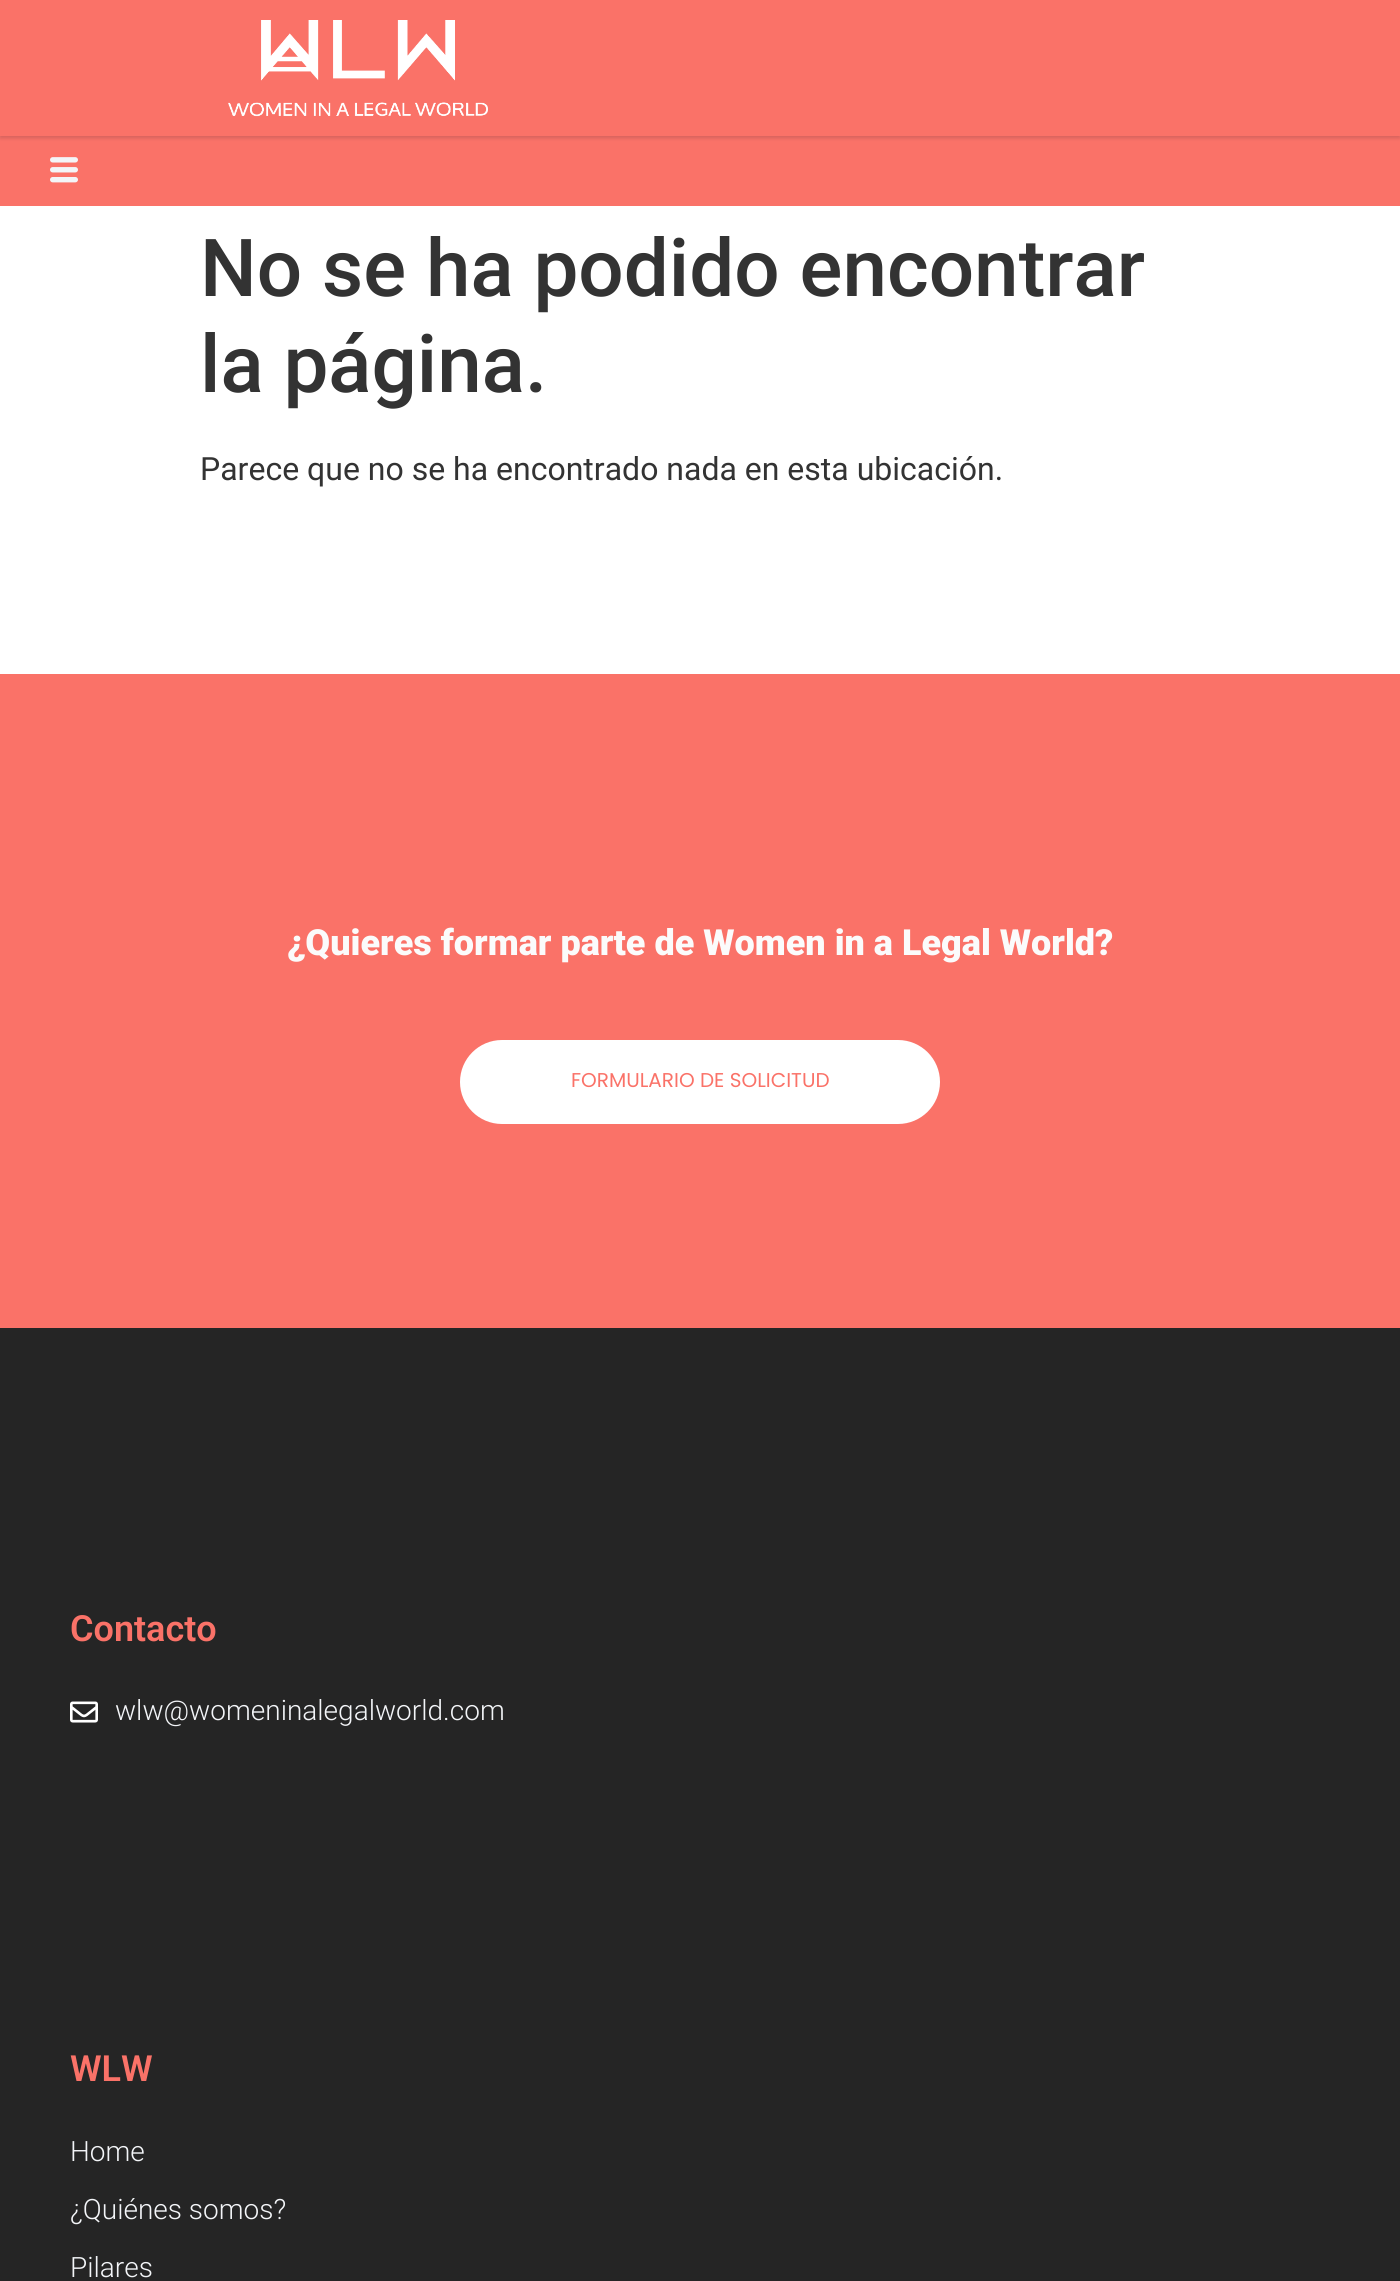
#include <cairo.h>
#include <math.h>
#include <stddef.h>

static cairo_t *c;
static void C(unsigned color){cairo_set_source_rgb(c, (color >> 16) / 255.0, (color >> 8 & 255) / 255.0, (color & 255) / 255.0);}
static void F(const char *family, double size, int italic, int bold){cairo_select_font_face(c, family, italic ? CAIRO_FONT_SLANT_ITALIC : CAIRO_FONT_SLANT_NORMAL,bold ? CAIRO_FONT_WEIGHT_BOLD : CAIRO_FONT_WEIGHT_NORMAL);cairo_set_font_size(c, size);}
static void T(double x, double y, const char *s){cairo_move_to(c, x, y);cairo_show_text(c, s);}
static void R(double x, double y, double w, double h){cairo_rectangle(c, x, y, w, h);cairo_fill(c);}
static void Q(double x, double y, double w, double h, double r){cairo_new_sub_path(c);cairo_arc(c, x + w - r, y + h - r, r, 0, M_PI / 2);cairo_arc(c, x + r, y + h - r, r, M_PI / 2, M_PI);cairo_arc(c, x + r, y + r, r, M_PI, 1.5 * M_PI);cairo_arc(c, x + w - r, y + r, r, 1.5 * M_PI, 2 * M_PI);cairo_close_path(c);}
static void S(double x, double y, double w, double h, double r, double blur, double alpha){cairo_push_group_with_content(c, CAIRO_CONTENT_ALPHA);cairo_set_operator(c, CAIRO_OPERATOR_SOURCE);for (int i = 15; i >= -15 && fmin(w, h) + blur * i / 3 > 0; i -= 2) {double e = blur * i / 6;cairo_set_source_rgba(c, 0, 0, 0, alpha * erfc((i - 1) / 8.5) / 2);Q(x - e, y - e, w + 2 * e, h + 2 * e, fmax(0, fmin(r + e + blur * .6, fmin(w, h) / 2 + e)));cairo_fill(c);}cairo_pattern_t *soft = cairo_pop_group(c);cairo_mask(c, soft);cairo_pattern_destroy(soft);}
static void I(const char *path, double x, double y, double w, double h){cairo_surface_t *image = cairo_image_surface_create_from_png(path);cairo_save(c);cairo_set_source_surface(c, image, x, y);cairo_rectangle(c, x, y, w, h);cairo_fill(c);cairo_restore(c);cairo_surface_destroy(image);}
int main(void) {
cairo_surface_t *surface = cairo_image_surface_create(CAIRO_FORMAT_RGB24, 1400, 2281);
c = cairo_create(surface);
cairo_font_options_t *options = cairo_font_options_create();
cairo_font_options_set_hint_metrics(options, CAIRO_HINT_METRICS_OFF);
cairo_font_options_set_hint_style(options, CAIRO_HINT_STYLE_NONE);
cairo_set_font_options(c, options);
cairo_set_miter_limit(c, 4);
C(0xffffff);
cairo_paint(c);
C(0xfa7268);
R(0,136,1400,70);
C(0x030c25);
S(0,2,1400,136,0,2,.16);
C(0xfa7268);
R(0,0,1400,136);
I("1.png",228,20,260,97);
I("2.png",50,157,28,26);
F("Roboto Medium",80,0,0);
C(0x333333);
T(200,296,"No se ha podido encontrar");
T(200,392,"la página.");
F("Roboto",32,0,0);
T(200,480,"Parece que no se ha encontrado nada en esta ubicación.");
C(0xfa7268);
R(0,674,1400,654);
F("Roboto Black",36,0,0);
C(0xfbfbfb);
T(287,955,"¿Quieres formar parte de Women in a Legal World?");
C(0xffffff);
Q(459,1039,482,86,43);
cairo_fill_preserve(c);
C(0xfa7268);
cairo_stroke(c);
F("Poppins",20,0,0);
T(571,1087,"FORMULARIO DE SOLICITUD");
C(0x252525);
R(0,1328,1400,953);
F("Roboto SemiBold",36,0,0);
C(0xfa7268);
T(70,1641,"Contacto");
I("3.png",70,1701,28,22);
F("Roboto Light",28,0,0);
C(0xf3f5f8);
T(115,1720,"wlw@womeninalegalworld.com");
F("Roboto SemiBold",36,0,0);
C(0xfa7268);
T(70,2081,"WLW");
F("Roboto Light",28,0,0);
C(0xf3f5f8);
T(70,2161,"Home");
T(70,2219,"¿Quiénes somos?");
T(70,2277,"Pilares");
cairo_surface_write_to_png(surface, "o.png");
cairo_font_options_destroy(options);
cairo_destroy(c);
cairo_surface_destroy(surface);
return 0;
}
